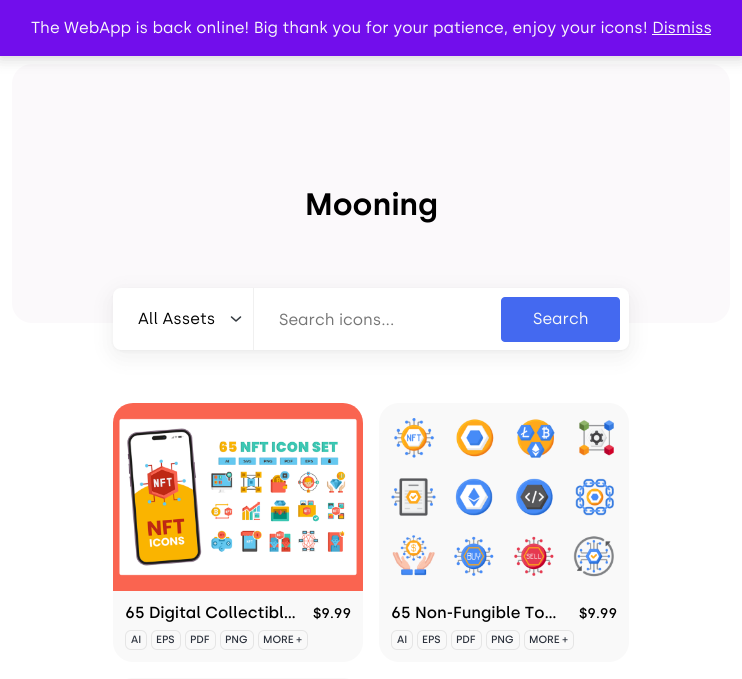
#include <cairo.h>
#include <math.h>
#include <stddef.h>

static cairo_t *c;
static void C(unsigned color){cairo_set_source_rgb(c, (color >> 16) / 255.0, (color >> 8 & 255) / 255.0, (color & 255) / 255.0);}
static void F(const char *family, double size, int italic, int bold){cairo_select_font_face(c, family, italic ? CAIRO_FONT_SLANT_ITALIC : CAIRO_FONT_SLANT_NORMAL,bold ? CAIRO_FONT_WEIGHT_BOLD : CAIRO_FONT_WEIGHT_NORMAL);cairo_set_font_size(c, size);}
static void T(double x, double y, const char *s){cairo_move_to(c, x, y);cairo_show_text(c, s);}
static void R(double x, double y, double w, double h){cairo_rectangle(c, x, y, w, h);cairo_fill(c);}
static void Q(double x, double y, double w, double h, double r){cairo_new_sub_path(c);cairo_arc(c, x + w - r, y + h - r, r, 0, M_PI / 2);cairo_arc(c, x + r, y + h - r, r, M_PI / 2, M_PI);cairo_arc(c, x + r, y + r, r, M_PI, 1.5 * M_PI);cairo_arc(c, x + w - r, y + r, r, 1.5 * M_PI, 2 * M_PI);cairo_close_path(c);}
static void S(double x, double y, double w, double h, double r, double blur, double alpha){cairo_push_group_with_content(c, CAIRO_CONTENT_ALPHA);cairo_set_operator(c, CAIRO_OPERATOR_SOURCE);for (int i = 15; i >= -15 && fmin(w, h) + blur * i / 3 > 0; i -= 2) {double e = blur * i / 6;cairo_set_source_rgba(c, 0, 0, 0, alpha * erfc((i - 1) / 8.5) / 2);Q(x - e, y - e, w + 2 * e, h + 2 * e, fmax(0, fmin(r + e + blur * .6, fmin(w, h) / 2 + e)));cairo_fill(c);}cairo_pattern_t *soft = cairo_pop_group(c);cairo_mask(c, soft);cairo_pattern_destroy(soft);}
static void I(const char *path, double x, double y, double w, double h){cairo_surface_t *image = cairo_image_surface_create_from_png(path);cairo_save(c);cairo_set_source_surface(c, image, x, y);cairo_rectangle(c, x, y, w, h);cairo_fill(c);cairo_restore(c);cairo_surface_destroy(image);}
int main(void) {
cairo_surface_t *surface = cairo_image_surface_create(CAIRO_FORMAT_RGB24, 742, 679);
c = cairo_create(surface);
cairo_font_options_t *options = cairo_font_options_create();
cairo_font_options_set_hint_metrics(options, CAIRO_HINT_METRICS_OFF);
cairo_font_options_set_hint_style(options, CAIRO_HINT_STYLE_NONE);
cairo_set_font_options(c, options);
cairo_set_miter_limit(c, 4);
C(0xffffff);
cairo_paint(c);
C(0xfbf9fb);
Q(12,64,718,259,20);
cairo_fill(c);
C(0x000000);
S(0,1,742,56,0,8,.2);
C(0x720eec);
R(0,0,742,56);
F("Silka",16,0,0);
C(0xf8f9fa);
T(31,33,"The WebApp is back online! Big thank you for your patience, enjoy your icons! Dismiss");
C(0xfcfbfe);
R(652,34,59,1);
F("Silka SemiBold",31,0,0);
C(0x000000);
T(305,215,"Mooning");
C(0x000000);
S(113,289,516,62,8,1.5,.04);
S(113,294,516,62,8,12.5,.07);
C(0xffffff);
Q(113,288,516,62,8);
cairo_fill(c);
C(0xf0f0f0);
R(253,288,1,62);
cairo_new_path(c);
cairo_move_to(c,231.5,317);
cairo_line_to(c,236,321);
cairo_line_to(c,240.5,317);
C(0x343a40);
cairo_set_line_width(c,1.5);
cairo_set_line_cap(c,CAIRO_LINE_CAP_ROUND);
cairo_set_line_join(c,CAIRO_LINE_JOIN_ROUND);
cairo_stroke(c);
F("Silka",16,0,0);
C(0x000000);
T(138,324,"All Assets");
C(0x757575);
T(279,325,"Search icons...");
C(0x4469f0);
Q(501,297,119,45,4);
cairo_fill(c);
C(0xf8f9fa);
T(533,324,"Search");
C(0xf9f9f9);
Q(113,403,250,259,20);
cairo_fill(c);
I("1.png",113,403,250,188);
F("Silka Medium",16,0,0);
C(0x000000);
T(125,618,"65 Digital Collectibl…");
F("Silka Medium",14,0,0);
T(313,618,"$9.99");
Q(125.5,630.5,21,19,5.5);
C(0xe5e5e5);
cairo_set_line_width(c,1);
cairo_set_line_cap(c,CAIRO_LINE_CAP_BUTT);
cairo_set_line_join(c,CAIRO_LINE_JOIN_MITER);
cairo_stroke(c);
F("Silka Medium",10.5,0,0);
C(0x2c323d);
T(131,643,"AI");
Q(151.5,630.5,29,19,5.5);
C(0xe5e5e5);
cairo_stroke(c);
C(0x2c323d);
T(156,643,"EPS");
Q(185.5,630.5,30,19,5.5);
C(0xe5e5e5);
cairo_stroke(c);
C(0x2c323d);
T(190,643,"PDF");
Q(220.5,630.5,33,19,5.5);
C(0xe5e5e5);
cairo_stroke(c);
C(0x2c323d);
T(225,643,"PNG");
Q(258.5,630.5,49,19,5.5);
C(0xe5e5e5);
cairo_stroke(c);
C(0x2c323d);
T(263,643,"MORE +");
C(0xf9f9f9);
Q(379,403,250,259,20);
cairo_fill(c);
I("2.png",391,418,223,159);
F("Silka Medium",16,0,0);
C(0x000000);
T(391,618,"65 Non-Fungible To…");
F("Silka Medium",14,0,0);
T(579,618,"$9.99");
Q(391.5,630.5,21,19,5.5);
C(0xe5e5e5);
cairo_stroke(c);
F("Silka Medium",10.5,0,0);
C(0x2c323d);
T(397,643,"AI");
Q(417.5,630.5,29,19,5.5);
C(0xe5e5e5);
cairo_stroke(c);
C(0x2c323d);
T(422,643,"EPS");
Q(451.5,630.5,30,19,5.5);
C(0xe5e5e5);
cairo_stroke(c);
C(0x2c323d);
T(456,643,"PDF");
Q(486.5,630.5,33,19,5.5);
C(0xe5e5e5);
cairo_stroke(c);
C(0x2c323d);
T(491,643,"PNG");
Q(524.5,630.5,49,19,5.5);
C(0xe5e5e5);
cairo_stroke(c);
C(0x2c323d);
T(529,643,"MORE +");
C(0xf9f9f9);
Q(113,678,250,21,20);
cairo_fill(c);
cairo_surface_write_to_png(surface, "o.png");
cairo_font_options_destroy(options);
cairo_destroy(c);
cairo_surface_destroy(surface);
return 0;
}
